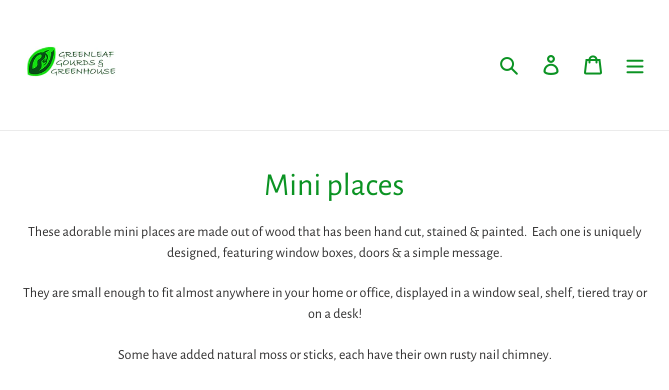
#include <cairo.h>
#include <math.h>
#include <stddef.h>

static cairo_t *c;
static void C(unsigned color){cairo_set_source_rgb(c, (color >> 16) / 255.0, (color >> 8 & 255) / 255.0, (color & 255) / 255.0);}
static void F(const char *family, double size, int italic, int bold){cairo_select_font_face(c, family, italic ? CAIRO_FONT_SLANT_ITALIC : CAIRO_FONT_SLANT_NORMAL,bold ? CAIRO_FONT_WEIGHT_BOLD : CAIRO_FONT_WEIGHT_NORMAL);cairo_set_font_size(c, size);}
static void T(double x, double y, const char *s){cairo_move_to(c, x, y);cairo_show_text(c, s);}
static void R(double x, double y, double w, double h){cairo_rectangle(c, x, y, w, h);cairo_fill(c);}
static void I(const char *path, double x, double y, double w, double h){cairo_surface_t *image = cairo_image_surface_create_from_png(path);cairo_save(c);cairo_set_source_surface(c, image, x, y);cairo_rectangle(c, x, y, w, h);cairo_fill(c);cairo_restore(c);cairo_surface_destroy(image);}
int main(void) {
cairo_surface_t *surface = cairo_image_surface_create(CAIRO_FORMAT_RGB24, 669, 390);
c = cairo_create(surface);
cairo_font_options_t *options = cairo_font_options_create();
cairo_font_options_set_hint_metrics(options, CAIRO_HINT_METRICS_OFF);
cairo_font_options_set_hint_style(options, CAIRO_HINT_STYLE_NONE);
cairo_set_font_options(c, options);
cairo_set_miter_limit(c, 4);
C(0xffffff);
cairo_paint(c);
C(0xebebeb);
R(0,130,669,1);
I("1.png",27,46,89,31);
I("2.png",500,57,18,18);
I("3.png",543,55,16,20);
I("4.png",584,55,18,20);
I("5.png",626,59,18,15);
F("Alegreya Sans",32,0,0);
C(0x0b9323);
T(264,195,"Mini places");
F("Alegreya Sans",14,0,0);
C(0x333232);
T(28,236,"These adorable mini places are made out of wood that has been hand cut, stained & painted.  Each one is uniquely");
T(167,257,"designed, featuring window boxes, doors & a simple message.");
T(23,297,"They are small enough to fit almost anywhere in your home or office, displayed in a window seal, shelf, tiered tray or");
T(308,318,"on a desk!");
T(118,359,"Some have added natural moss or sticks, each have their own rusty nail chimney.");
cairo_surface_write_to_png(surface, "o.png");
cairo_font_options_destroy(options);
cairo_destroy(c);
cairo_surface_destroy(surface);
return 0;
}
